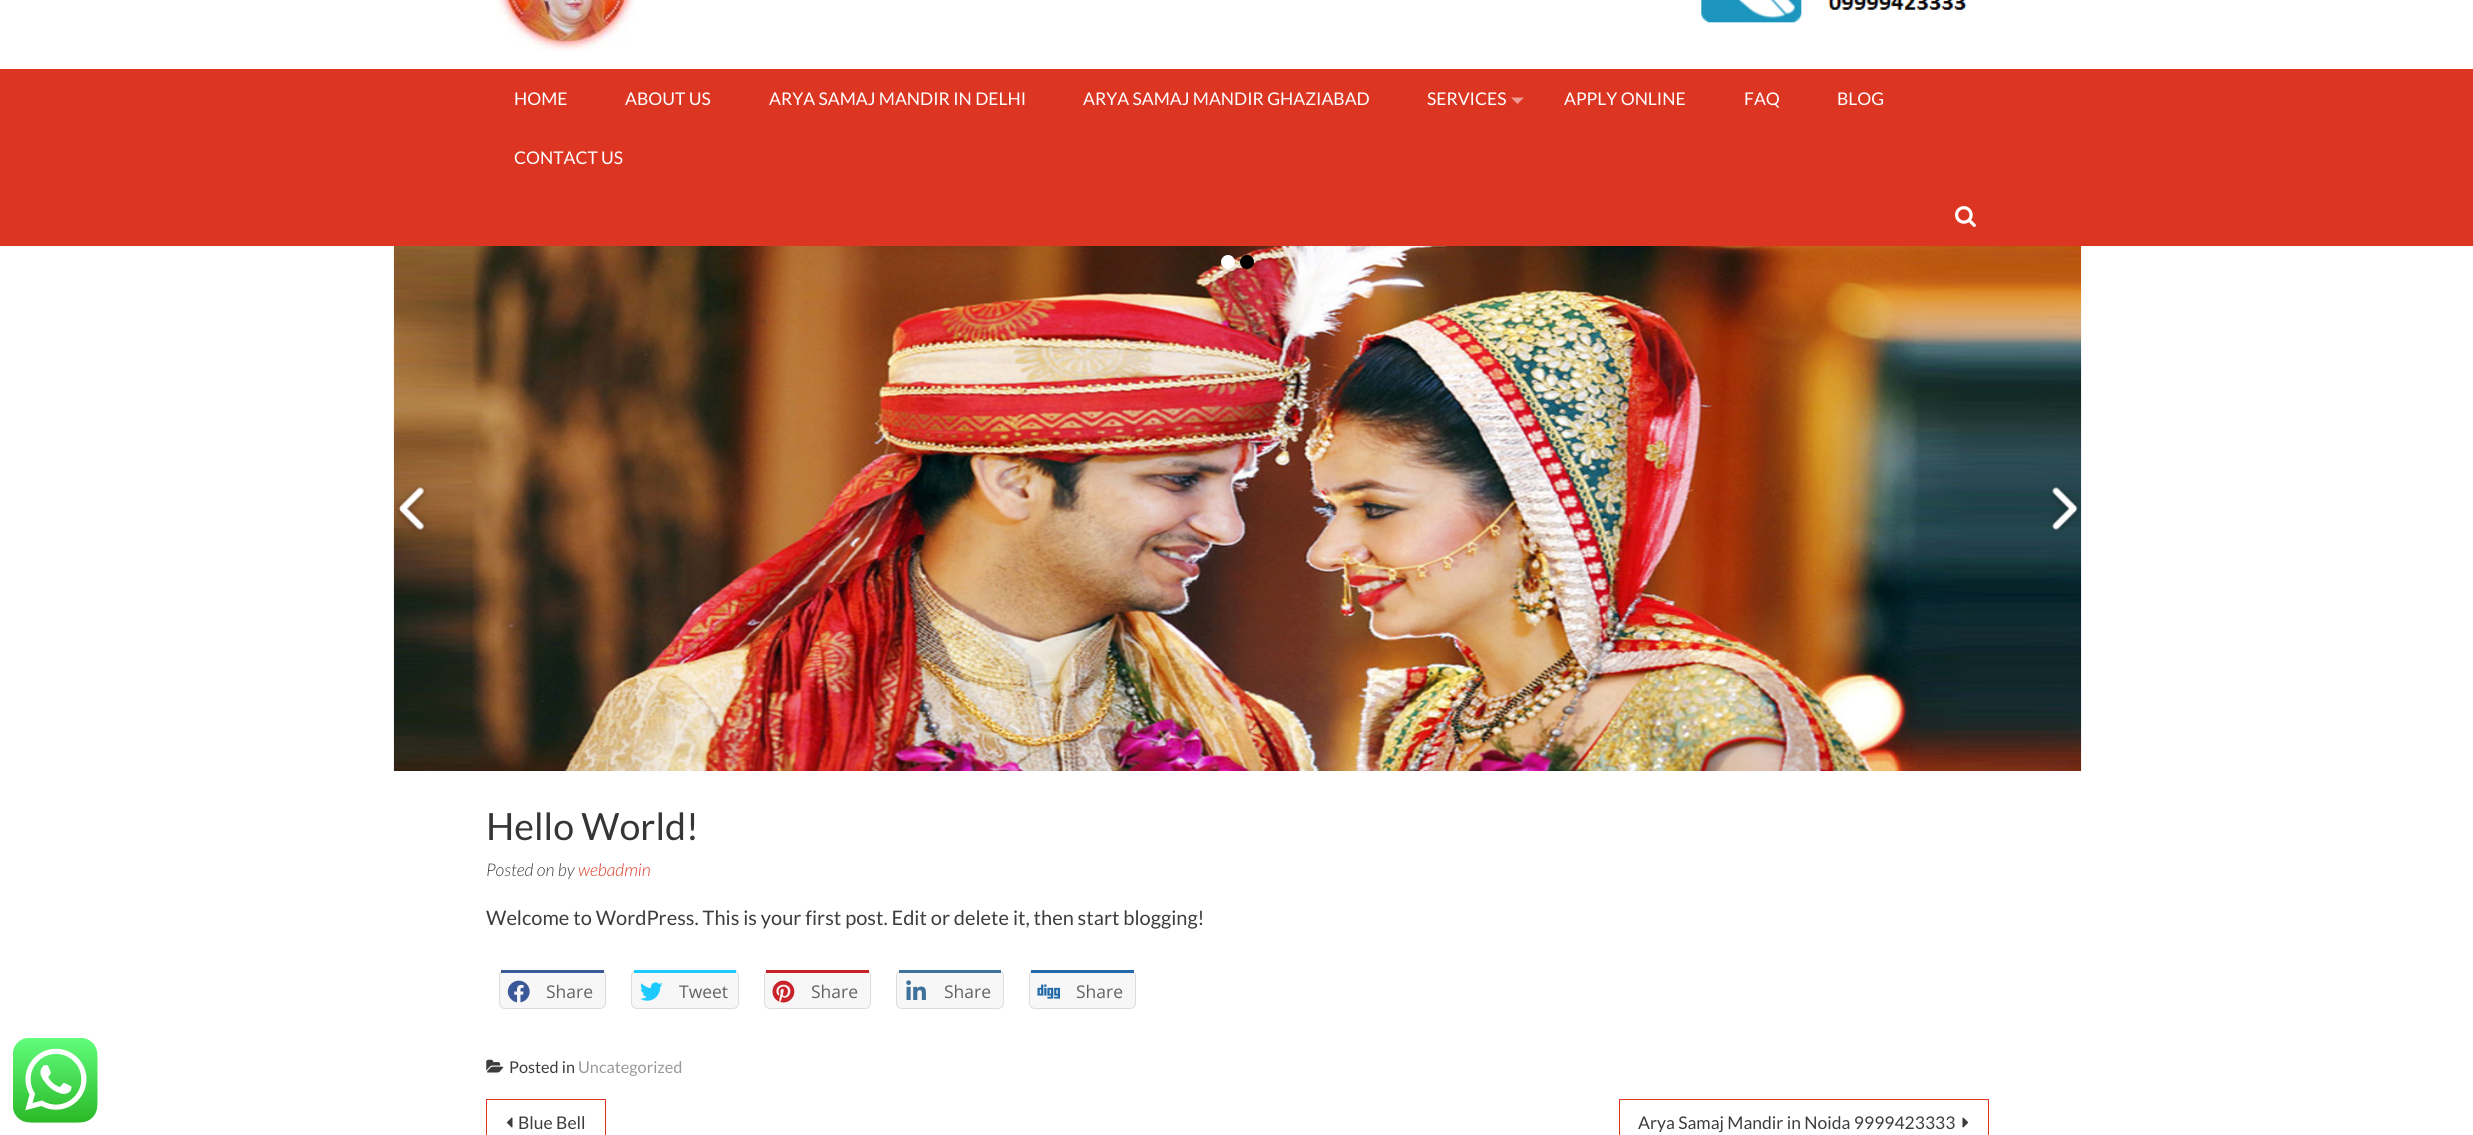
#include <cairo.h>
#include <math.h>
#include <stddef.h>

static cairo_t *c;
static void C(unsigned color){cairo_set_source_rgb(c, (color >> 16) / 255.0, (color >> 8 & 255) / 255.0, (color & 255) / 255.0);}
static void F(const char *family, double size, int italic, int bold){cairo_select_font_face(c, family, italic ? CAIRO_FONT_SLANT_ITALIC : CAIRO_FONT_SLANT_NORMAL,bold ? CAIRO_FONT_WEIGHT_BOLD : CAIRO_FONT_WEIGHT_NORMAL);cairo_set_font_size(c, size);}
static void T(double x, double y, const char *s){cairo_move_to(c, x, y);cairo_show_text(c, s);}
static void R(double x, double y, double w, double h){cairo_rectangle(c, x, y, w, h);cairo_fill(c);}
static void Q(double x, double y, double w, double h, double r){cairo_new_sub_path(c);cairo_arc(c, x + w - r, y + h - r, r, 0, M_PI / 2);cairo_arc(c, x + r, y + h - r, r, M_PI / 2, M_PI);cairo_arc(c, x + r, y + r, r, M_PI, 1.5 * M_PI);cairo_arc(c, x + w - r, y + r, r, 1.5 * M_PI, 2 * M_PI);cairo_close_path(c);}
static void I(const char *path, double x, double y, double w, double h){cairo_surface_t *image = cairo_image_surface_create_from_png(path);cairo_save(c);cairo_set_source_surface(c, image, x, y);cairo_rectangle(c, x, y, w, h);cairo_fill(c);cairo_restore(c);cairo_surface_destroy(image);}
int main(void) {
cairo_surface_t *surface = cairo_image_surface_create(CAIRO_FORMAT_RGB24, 2473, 1135);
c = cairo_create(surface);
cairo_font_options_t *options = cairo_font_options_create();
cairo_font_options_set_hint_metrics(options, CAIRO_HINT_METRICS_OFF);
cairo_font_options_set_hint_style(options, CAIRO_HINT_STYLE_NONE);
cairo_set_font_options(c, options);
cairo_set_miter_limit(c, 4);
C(0xffffff);
cairo_paint(c);
I("1.png",13,1038,85,85);
I("2.png",496,0,139,51);
I("3.png",1701,0,266,23);
C(0xdc3522);
R(0,69,2473,177);
F("Lato",17.5,0,0);
C(0xffffff);
T(514,105,"HOME");
T(625,105,"ABOUT US");
T(769,105,"ARYA SAMAJ MANDIR IN DELHI");
T(1083,105,"ARYA SAMAJ MANDIR GHAZIABAD");
T(1427,105,"SERVICES");
C(0xee9a91);
cairo_new_path(c);
cairo_move_to(c,1511,97.5);
cairo_line_to(c,1524,97.5);
cairo_line_to(c,1517.5,104);
cairo_close_path(c);
cairo_fill(c);
C(0xffffff);
T(1564,105,"APPLY ONLINE");
T(1744,105,"FAQ");
T(1837,105,"BLOG");
T(514,164,"CONTACT US");
I("4.png",1955,206,21,21);
I("5.png",393,246,1689,525);
cairo_arc(c,1228,262,7,0,2 * M_PI);
cairo_fill(c);
C(0x000000);
cairo_arc(c,1247,262,7,0,2 * M_PI);
cairo_fill(c);
I("6.png",396,485,32,49);
I("7.png",2051,487,28,46);
F("Lato",37.5,0,0);
C(0x353535);
T(486,840,"Hello World!");
F("Lato Light",17.5,1,0);
C(0x3d3d3d);
T(486,876,"Posted on by");
C(0xdc3522);
T(578,876,"webadmin");
F("Lato",20,0,0);
C(0x3d3d3d);
T(486,925,"Welcome to WordPress. This is your first post. Edit or delete it, then start blogging!");
C(0xf7f7f7);
Q(499.5,970.5,106,38,5.5);
cairo_fill_preserve(c);
C(0xdcdcdc);
cairo_set_line_width(c,1);
cairo_stroke(c);
C(0x3b5998);
R(501,970,103,3);
I("8.png",507,980,23,23);
F("Open Sans",17.5,0,0);
C(0x636363);
T(546,998,"Share");
C(0xf7f7f7);
Q(631.5,970.5,107,38,5.5);
cairo_fill_preserve(c);
C(0xdcdcdc);
cairo_stroke(c);
C(0x1dcaff);
R(634,970,102,3);
I("9.png",640,982,23,19);
C(0x636363);
T(679,998,"Tweet");
C(0xf7f7f7);
Q(764.5,970.5,106,38,5.5);
cairo_fill_preserve(c);
C(0xdcdcdc);
cairo_stroke(c);
C(0xc92228);
R(766,970,103,3);
I("10.png",772,980,23,23);
C(0x636363);
T(811,998,"Share");
C(0xf7f7f7);
Q(896.5,970.5,107,38,5.5);
cairo_fill_preserve(c);
C(0xdcdcdc);
cairo_stroke(c);
C(0x3f729b);
R(899,970,102,3);
I("11.png",906,980,20,20);
C(0x636363);
T(944,998,"Share");
C(0xf7f7f7);
Q(1029.5,970.5,106,38,5.5);
cairo_fill_preserve(c);
C(0xdcdcdc);
cairo_stroke(c);
C(0x2169a8);
R(1031,970,103,3);
I("12.png",1037,984,23,15);
C(0x636363);
T(1076,998,"Share");
I("13.png",486,1059,18,14);
F("Lato",16.25,0,0);
C(0x3d3d3d);
T(509,1073,"Posted in");
C(0x999999);
T(578,1073,"Uncategorized");
cairo_rectangle(c,486.5,1099.5,119,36);
C(0xdc3522);
cairo_stroke(c);
I("14.png",506,1117,7,11);
F("Lato",17.5,0,0);
C(0x3d3d3d);
T(518,1129,"Blue Bell");
cairo_rectangle(c,1619.5,1099.5,369,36);
C(0xdc3522);
cairo_stroke(c);
C(0x3d3d3d);
T(1638,1129,"Arya Samaj Mandir in Noida 9999423333");
I("15.png",1962,1117,7,11);
cairo_surface_write_to_png(surface, "o.png");
cairo_font_options_destroy(options);
cairo_destroy(c);
cairo_surface_destroy(surface);
return 0;
}
